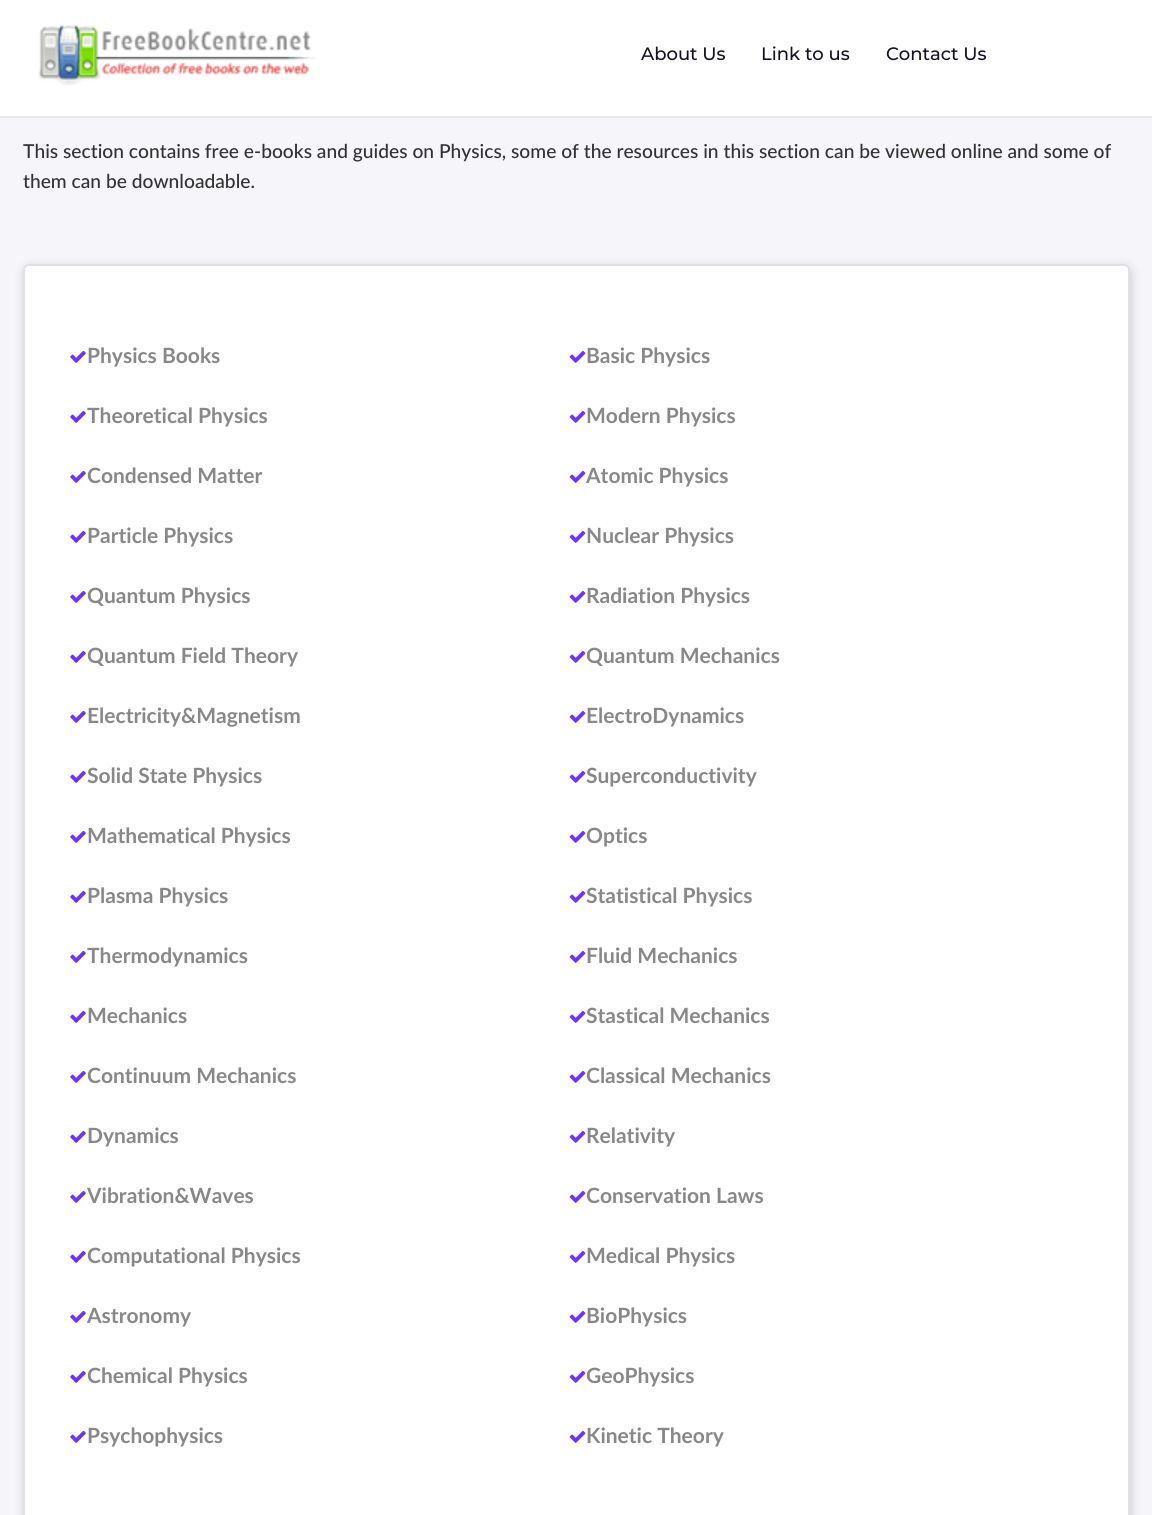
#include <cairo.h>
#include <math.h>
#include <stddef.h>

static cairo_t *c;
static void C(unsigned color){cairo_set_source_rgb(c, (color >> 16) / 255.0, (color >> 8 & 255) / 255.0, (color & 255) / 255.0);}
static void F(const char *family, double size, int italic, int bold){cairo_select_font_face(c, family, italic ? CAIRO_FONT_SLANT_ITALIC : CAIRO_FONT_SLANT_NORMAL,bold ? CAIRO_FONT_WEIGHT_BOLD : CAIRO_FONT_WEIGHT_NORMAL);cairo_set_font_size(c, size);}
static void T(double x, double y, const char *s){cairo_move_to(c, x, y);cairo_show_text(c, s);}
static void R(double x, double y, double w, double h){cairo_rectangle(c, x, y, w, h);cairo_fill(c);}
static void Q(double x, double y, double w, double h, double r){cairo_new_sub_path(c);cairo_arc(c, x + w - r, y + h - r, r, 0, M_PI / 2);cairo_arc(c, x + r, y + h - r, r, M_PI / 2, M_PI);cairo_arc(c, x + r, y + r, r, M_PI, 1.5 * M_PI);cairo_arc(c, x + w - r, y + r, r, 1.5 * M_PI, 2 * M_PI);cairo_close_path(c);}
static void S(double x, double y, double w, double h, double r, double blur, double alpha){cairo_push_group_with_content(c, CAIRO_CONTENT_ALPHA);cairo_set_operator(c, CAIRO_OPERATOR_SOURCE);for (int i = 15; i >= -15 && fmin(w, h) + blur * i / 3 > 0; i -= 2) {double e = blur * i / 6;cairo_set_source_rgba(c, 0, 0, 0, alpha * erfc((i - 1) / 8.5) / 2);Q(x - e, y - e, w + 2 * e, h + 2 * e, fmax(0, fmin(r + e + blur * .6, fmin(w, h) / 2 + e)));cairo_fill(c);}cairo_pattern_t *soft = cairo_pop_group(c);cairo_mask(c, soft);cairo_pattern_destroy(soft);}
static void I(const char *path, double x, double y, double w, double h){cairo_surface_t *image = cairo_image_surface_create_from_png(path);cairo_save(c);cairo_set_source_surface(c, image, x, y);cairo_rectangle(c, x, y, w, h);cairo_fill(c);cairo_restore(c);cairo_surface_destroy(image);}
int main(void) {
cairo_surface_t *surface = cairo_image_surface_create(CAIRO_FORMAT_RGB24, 1152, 1515);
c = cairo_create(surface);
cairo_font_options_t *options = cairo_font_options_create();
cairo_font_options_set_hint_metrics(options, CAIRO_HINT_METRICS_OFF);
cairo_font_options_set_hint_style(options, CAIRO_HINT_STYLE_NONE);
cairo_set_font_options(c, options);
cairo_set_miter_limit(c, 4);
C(0xf6f5f9);
cairo_paint(c);
C(0xffffff);
R(0,0,1152,116);
C(0xe8e8e8);
R(0,116,1152,2);
I("1.png",38,25,278,61);
F("Montserrat Medium",18,0,0);
C(0x151122);
T(641,60,"About Us");
T(761,60,"Link to us");
T(886,60,"Contact Us");
F("Lato Medium",19.2,0,0);
C(0x323232);
T(23,158,"This section contains free e-books and guides on Physics, some of the resources in this section can be viewed online and some of");
T(23,188,"them can be downloadable.");
C(0x9d9d9d);
S(24,267,1107,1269,6,5,.5);
C(0xffffff);
Q(23,264,1107,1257,6);
cairo_fill(c);
Q(24,265,1105,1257,5);
cairo_set_source_rgba(c,0,0,0,0.12);
cairo_stroke(c);
I("2.png",70,350,16,13);
F("Lato",21,0,1);
C(0x888888);
T(87,363,"Physics Books");
I("3.png",569,351,17,12);
T(586,363,"Basic Physics");
I("2.png",70,410,16,13);
T(87,423,"Theoretical Physics");
I("3.png",569,411,17,12);
T(586,423,"Modern Physics");
I("2.png",70,470,16,13);
T(87,483,"Condensed Matter");
I("3.png",569,471,17,12);
T(586,483,"Atomic Physics");
I("2.png",70,530,16,13);
T(87,543,"Particle Physics");
I("3.png",569,531,17,12);
T(586,543,"Nuclear Physics");
I("2.png",70,590,16,13);
T(87,603,"Quantum Physics");
I("3.png",569,591,17,12);
T(586,603,"Radiation Physics");
I("2.png",70,650,16,13);
T(87,663,"Quantum Field Theory");
I("3.png",569,651,17,12);
T(586,663,"Quantum Mechanics");
I("2.png",70,710,16,13);
T(87,723,"Electricity&Magnetism");
I("3.png",569,711,17,12);
T(586,723,"ElectroDynamics");
I("2.png",70,770,16,13);
T(87,783,"Solid State Physics");
I("3.png",569,771,17,12);
T(586,783,"Superconductivity");
I("2.png",70,830,16,13);
T(87,843,"Mathematical Physics");
I("3.png",569,831,17,12);
T(586,843,"Optics");
I("2.png",70,890,16,13);
T(87,903,"Plasma Physics");
I("3.png",569,891,17,12);
T(586,903,"Statistical Physics");
I("2.png",70,950,16,13);
T(87,963,"Thermodynamics");
I("3.png",569,951,17,12);
T(586,963,"Fluid Mechanics");
I("2.png",70,1010,16,13);
T(87,1023,"Mechanics");
I("3.png",569,1011,17,12);
T(586,1023,"Stastical Mechanics");
I("2.png",70,1070,16,13);
T(87,1083,"Continuum Mechanics");
I("3.png",569,1071,17,12);
T(586,1083,"Classical Mechanics");
I("2.png",70,1130,16,13);
T(87,1143,"Dynamics");
I("3.png",569,1131,17,12);
T(586,1143,"Relativity");
I("2.png",70,1190,16,13);
T(87,1203,"Vibration&Waves");
I("3.png",569,1191,17,12);
T(586,1203,"Conservation Laws");
I("2.png",70,1250,16,13);
T(87,1263,"Computational Physics");
I("3.png",569,1251,17,12);
T(586,1263,"Medical Physics");
I("2.png",70,1310,16,13);
T(87,1323,"Astronomy");
I("3.png",569,1311,17,12);
T(586,1323,"BioPhysics");
I("2.png",70,1370,16,13);
T(87,1383,"Chemical Physics");
I("3.png",569,1371,17,12);
T(586,1383,"GeoPhysics");
I("2.png",70,1430,16,13);
T(87,1443,"Psychophysics");
I("3.png",569,1431,17,12);
T(586,1443,"Kinetic Theory");
cairo_surface_write_to_png(surface, "o.png");
cairo_font_options_destroy(options);
cairo_destroy(c);
cairo_surface_destroy(surface);
return 0;
}
